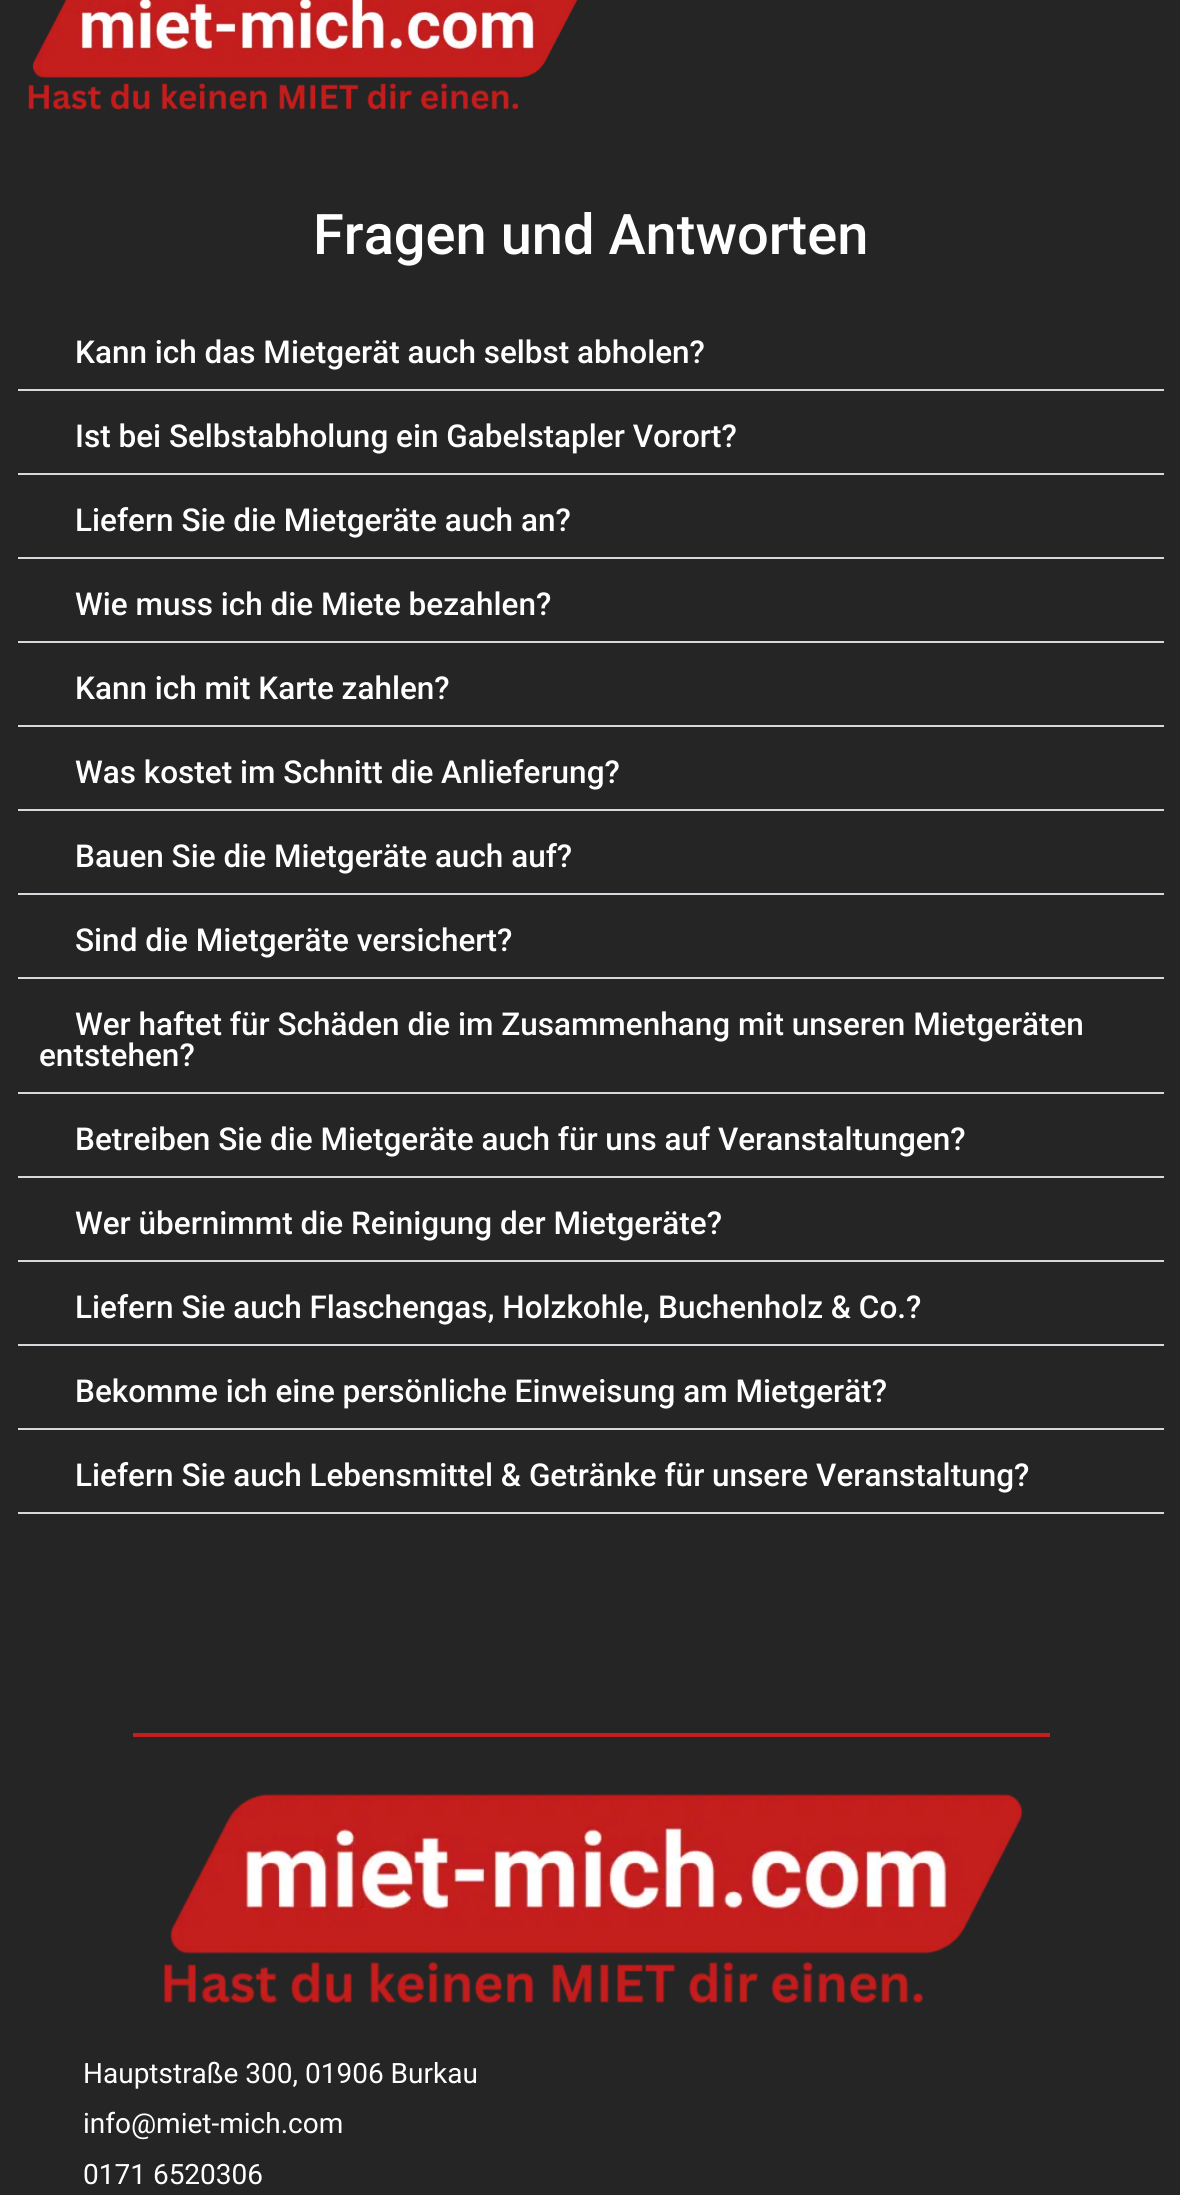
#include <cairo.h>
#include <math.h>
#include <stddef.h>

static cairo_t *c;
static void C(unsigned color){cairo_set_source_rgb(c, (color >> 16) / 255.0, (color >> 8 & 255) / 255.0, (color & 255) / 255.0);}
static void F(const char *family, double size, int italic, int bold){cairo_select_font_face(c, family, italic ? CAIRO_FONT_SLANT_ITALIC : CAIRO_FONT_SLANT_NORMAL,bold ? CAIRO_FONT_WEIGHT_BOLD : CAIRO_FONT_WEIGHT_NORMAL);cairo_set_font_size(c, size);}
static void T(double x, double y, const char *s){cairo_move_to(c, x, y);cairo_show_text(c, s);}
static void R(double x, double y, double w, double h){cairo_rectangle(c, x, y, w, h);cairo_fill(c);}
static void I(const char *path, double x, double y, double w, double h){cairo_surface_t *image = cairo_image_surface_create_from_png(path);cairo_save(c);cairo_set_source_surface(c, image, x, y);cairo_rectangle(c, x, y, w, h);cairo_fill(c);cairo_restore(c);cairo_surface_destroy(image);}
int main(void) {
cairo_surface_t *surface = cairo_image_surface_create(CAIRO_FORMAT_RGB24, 1180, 2195);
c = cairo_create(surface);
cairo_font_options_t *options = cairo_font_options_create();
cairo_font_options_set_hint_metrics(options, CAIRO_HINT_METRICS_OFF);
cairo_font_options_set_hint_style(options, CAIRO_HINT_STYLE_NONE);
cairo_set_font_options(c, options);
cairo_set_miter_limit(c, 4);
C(0x252525);
cairo_paint(c);
I("1.png",28,0,550,110);
F("Roboto Medium",56,0,0);
C(0xffffff);
T(313,254,"Fragen und Antworten");
C(0xd5d8dc);
R(18,389,1146,2);
F("Roboto Medium",31.5,0,0);
C(0xffffff);
T(75,363,"Kann ich das Mietgerät auch selbst abholen?");
C(0xd5d8dc);
R(18,473,1146,2);
C(0xffffff);
T(75,447,"Ist bei Selbstabholung ein Gabelstapler Vorort?");
C(0xd5d8dc);
R(18,557,1146,2);
C(0xffffff);
T(75,531,"Liefern Sie die Mietgeräte auch an?");
C(0xd5d8dc);
R(18,641,1146,2);
C(0xffffff);
T(75,615,"Wie muss ich die Miete bezahlen?");
C(0xd5d8dc);
R(18,725,1146,2);
C(0xffffff);
T(75,699,"Kann ich mit Karte zahlen?");
C(0xd5d8dc);
R(18,809,1146,2);
C(0xffffff);
T(75,783,"Was kostet im Schnitt die Anlieferung?");
C(0xd5d8dc);
R(18,893,1146,2);
C(0xffffff);
T(75,867,"Bauen Sie die Mietgeräte auch auf?");
C(0xd5d8dc);
R(18,977,1146,2);
C(0xffffff);
T(75,951,"Sind die Mietgeräte versichert?");
C(0xd5d8dc);
R(18,1092,1146,2);
C(0xffffff);
T(75,1035,"Wer haftet für Schäden die im Zusammenhang mit unseren Mietgeräten");
T(39,1066,"entstehen?");
C(0xd5d8dc);
R(18,1176,1146,2);
C(0xffffff);
T(75,1150,"Betreiben Sie die Mietgeräte auch für uns auf Veranstaltungen?");
C(0xd5d8dc);
R(18,1260,1146,2);
C(0xffffff);
T(75,1234,"Wer übernimmt die Reinigung der Mietgeräte?");
C(0xd5d8dc);
R(18,1344,1146,2);
C(0xffffff);
T(75,1318,"Liefern Sie auch Flaschengas, Holzkohle, Buchenholz & Co.?");
C(0xd5d8dc);
R(18,1428,1146,2);
C(0xffffff);
T(75,1402,"Bekomme ich eine persönliche Einweisung am Mietgerät?");
C(0xd5d8dc);
R(18,1512,1146,2);
C(0xffffff);
T(75,1486,"Liefern Sie auch Lebensmittel & Getränke für unsere Veranstaltung?");
C(0xc41e1e);
R(133,1733,917,4);
I("2.png",164,1794,859,210);
F("Roboto",28,0,0);
C(0xffffff);
T(83,2083,"Hauptstraße 300, 01906 Burkau");
T(83,2133,"info@miet-mich.com");
T(83,2184,"0171 6520306");
cairo_surface_write_to_png(surface, "o.png");
cairo_font_options_destroy(options);
cairo_destroy(c);
cairo_surface_destroy(surface);
return 0;
}
